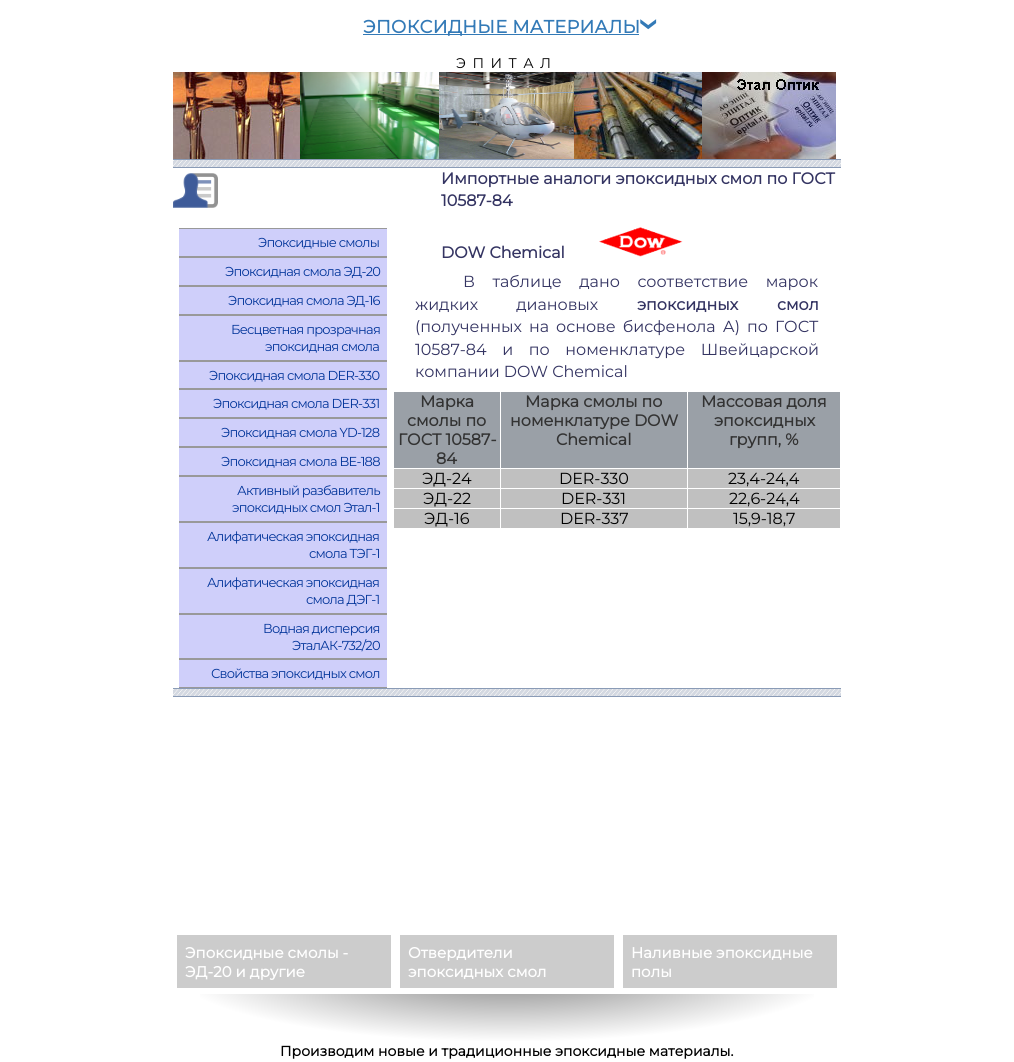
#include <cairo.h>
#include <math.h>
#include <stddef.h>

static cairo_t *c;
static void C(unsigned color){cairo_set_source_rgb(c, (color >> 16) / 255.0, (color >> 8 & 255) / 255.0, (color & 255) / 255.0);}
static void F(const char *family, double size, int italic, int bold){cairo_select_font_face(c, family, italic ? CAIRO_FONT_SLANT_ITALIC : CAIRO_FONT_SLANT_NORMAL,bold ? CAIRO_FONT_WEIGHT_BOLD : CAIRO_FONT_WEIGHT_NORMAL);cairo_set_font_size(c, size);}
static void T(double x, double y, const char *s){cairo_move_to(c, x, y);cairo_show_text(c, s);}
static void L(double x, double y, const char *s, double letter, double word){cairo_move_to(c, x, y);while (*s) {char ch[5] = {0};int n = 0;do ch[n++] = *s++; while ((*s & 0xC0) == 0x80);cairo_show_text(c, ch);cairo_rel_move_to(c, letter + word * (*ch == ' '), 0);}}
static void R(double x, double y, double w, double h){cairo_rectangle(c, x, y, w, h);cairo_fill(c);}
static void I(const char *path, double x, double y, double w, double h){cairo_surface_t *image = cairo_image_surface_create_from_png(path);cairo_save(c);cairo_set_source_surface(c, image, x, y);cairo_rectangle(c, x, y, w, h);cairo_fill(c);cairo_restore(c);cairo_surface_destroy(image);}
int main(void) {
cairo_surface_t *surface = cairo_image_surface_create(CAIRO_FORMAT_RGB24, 1014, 1062);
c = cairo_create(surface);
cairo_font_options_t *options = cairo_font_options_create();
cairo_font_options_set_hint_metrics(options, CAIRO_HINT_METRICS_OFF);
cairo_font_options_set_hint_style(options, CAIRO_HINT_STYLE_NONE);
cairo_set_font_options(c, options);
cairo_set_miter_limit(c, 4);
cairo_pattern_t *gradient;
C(0xffffff);
cairo_paint(c);
C(0x337ab7);
R(363,34,276,1);
F("Montserrat",18,0,1);
L(363,33,"ЭПОКСИДНЫЕ МАТЕРИАЛЫ",.25,0);
F("Montserrat",39,0,1);
cairo_save(c);
cairo_translate(c,659,31);
cairo_rotate(c,-90 * M_PI / 180);
T(0,0,"‹");
cairo_restore(c);
F("Montserrat Thin",14,0,0);
C(0x000000);
L(456,68,"ЭПИТАЛ",6.5,0);
I("1.png",173,72,127,87);
I("2.png",300,72,139,87);
I("3.png",439,72,135,87);
I("4.png",574,72,128,87);
I("5.png",702,72,134,87);
I("6.png",173,159,668,9);
I("7.png",173,173,45,35);
F("Montserrat",16,0,1);
C(0x343462);
L(441,184,"Импортные аналоги эпоксидных смол по ГОСТ",-.05,0);
L(441,206,"10587-84",-.05,0);
L(441,258,"DOW Chemical",-.05,0);
I("8.png",599,227,84,30);
F("Montserrat Thin",16,0,0);
L(463,287,"В таблице дано соответствие марок",-.05,13.5);
L(415,310,"жидких диановых",-.05,34);
F("Montserrat",16,0,1);
L(637,310,"эпоксидных",-.05,0);
L(777,310,"смол",-.05,0);
F("Montserrat Thin",16,0,0);
L(415,332,"(полученных на основе бисфенола А) по ГОСТ",-.05,3);
L(415,355,"10587-84 и по номенклатуре Швейцарской",-.05,11.5);
L(415,377,"компании DOW Chemical",-.05,0);
C(0x9aa0a7);
R(394,392,106,76);
F("Montserrat",16,0,1);
C(0x333333);
L(420,407,"Марка",-.05,0);
L(407,426,"смолы по",-.05,0);
L(398,445,"ГОСТ 10587-",-.05,0);
L(436,464,"84",-.05,0);
C(0x9aa0a7);
R(501,392,186,76);
C(0x333333);
L(525,407,"Марка смолы по",-.05,0);
L(510,426,"номенклатуре DOW",-.05,0);
L(556,445,"Chemical",-.05,0);
C(0x9aa0a7);
R(688,392,152,76);
C(0x333333);
L(701,407,"Массовая доля",-.05,0);
L(714,426,"эпоксидных",-.05,0);
L(729,445,"групп, %",-.05,0);
C(0xc0c0c0);
R(394,469,106,19);
F("Montserrat Thin",16,0,0);
C(0x000000);
L(422,484,"ЭД-24",-.05,0);
C(0xc0c0c0);
R(501,469,186,19);
C(0x000000);
L(559,484,"DER-330",-.05,0);
C(0xc0c0c0);
R(688,469,152,19);
C(0x000000);
L(728,484,"23,4-24,4",-.05,0);
C(0xc0c0c0);
R(394,489,106,19);
C(0x000000);
L(423,504,"ЭД-22",-.05,0);
C(0xc0c0c0);
R(501,489,186,19);
C(0x000000);
L(561,504,"DER-331",-.05,0);
C(0xc0c0c0);
R(688,489,152,19);
C(0x000000);
L(729,504,"22,6-24,4",-.05,0);
C(0xc0c0c0);
R(394,509,106,19);
C(0x000000);
L(424,524,"ЭД-16",-.05,0);
C(0xc0c0c0);
R(501,509,186,19);
C(0x000000);
L(560,524,"DER-337",-.05,0);
C(0xc0c0c0);
R(688,509,152,19);
C(0x000000);
L(733,524,"15,9-18,7",-.05,0);
C(0xcfcffa);
R(179,229,208,27);
C(0x999999);
R(179,228,208,1);
R(179,256,208,2);
F("Montserrat Thin",13,0,0);
C(0x003399);
L(258,247,"Эпоксидные смолы",-.75,0);
C(0xcfcffa);
R(179,258,208,27);
C(0x999999);
R(179,285,208,2);
C(0x003399);
L(225,276,"Эпоксидная смола ЭД-20",-.75,0);
C(0xcfcffa);
R(179,287,208,27);
C(0x999999);
R(179,314,208,2);
C(0x003399);
L(228,305,"Эпоксидная смола ЭД-16",-.75,0);
C(0xcfcffa);
R(179,316,208,44);
C(0x999999);
R(179,360,208,2);
C(0x003399);
L(231,334,"Бесцветная прозрачная",-.75,0);
L(265,351,"эпоксидная смола",-.75,0);
C(0xcfcffa);
R(179,362,208,26);
C(0x999999);
R(179,388,208,2);
C(0x003399);
L(209,380,"Эпоксидная смола DER-330",-.75,0);
C(0xcfcffa);
R(179,390,208,27);
C(0x999999);
R(179,417,208,2);
C(0x003399);
L(213,408,"Эпоксидная смола DER-331",-.75,0);
C(0xcfcffa);
R(179,419,208,27);
C(0x999999);
R(179,446,208,2);
C(0x003399);
L(221,437,"Эпоксидная смола YD-128",-.75,0);
C(0xcfcffa);
R(179,448,208,27);
C(0x999999);
R(179,475,208,2);
C(0x003399);
L(221,466,"Эпоксидная смола BE-188",-.75,0);
C(0xcfcffa);
R(179,477,208,44);
C(0x999999);
R(179,521,208,2);
C(0x003399);
L(237,495,"Активный разбавитель",-.75,0);
L(232,512,"эпоксидных смол Этал-1",-.75,0);
C(0xcfcffa);
R(179,523,208,44);
C(0x999999);
R(179,567,208,2);
C(0x003399);
L(207,541,"Алифатическая эпоксидная",-.75,0);
L(309,558,"смола ТЭГ-1",-.75,0);
C(0xcfcffa);
R(179,569,208,44);
C(0x999999);
R(179,613,208,2);
C(0x003399);
L(207,587,"Алифатическая эпоксидная",-.75,0);
L(306,604,"смола ДЭГ-1",-.75,0);
C(0xcfcffa);
R(179,615,208,43);
C(0x999999);
R(179,658,208,2);
C(0x003399);
L(263,633,"Водная дисперсия",-.75,0);
L(292,650,"ЭталАК-732/20",-.75,0);
C(0xcfcffa);
R(179,660,208,27);
C(0x999999);
R(179,687,208,1);
C(0x003399);
L(211,678,"Свойства эпоксидных смол",-.75,0);
I("6.png",173,688,668,9);
C(0xcccccc);
R(177,935,214,53);
F("Montserrat",15,0,1);
C(0xffffff);
T(185,958,"Эпоксидные смолы -");
T(185,977,"ЭД-20 и другие");
C(0xcccccc);
R(400,935,214,53);
C(0xffffff);
T(408,958,"Отвердители");
T(408,977,"эпоксидных смол");
C(0xcccccc);
R(623,935,214,53);
C(0xffffff);
T(631,958,"Наливные эпоксидные");
T(631,977,"полы");
gradient = cairo_pattern_create_radial(0,0,0,0,0,1);
cairo_pattern_set_matrix(gradient, &(cairo_matrix_t){1.0 / 334, 0, 0, 1.0 / 72, -1.0 * 507 / 334, -1.0 * 970 / 72});
cairo_pattern_add_color_stop_rgba(gradient,0,0.502,0.502,0.502,1);
cairo_pattern_add_color_stop_rgba(gradient,1,1,1,1,1);
cairo_set_source(c,gradient);
cairo_pattern_destroy(gradient);
R(200,994,614,47);
F("Montserrat",14,0,1);
C(0x000000);
T(280,1056,"Производим новые и традиционные эпоксидные материалы.");
cairo_surface_write_to_png(surface, "o.png");
cairo_font_options_destroy(options);
cairo_destroy(c);
cairo_surface_destroy(surface);
return 0;
}
